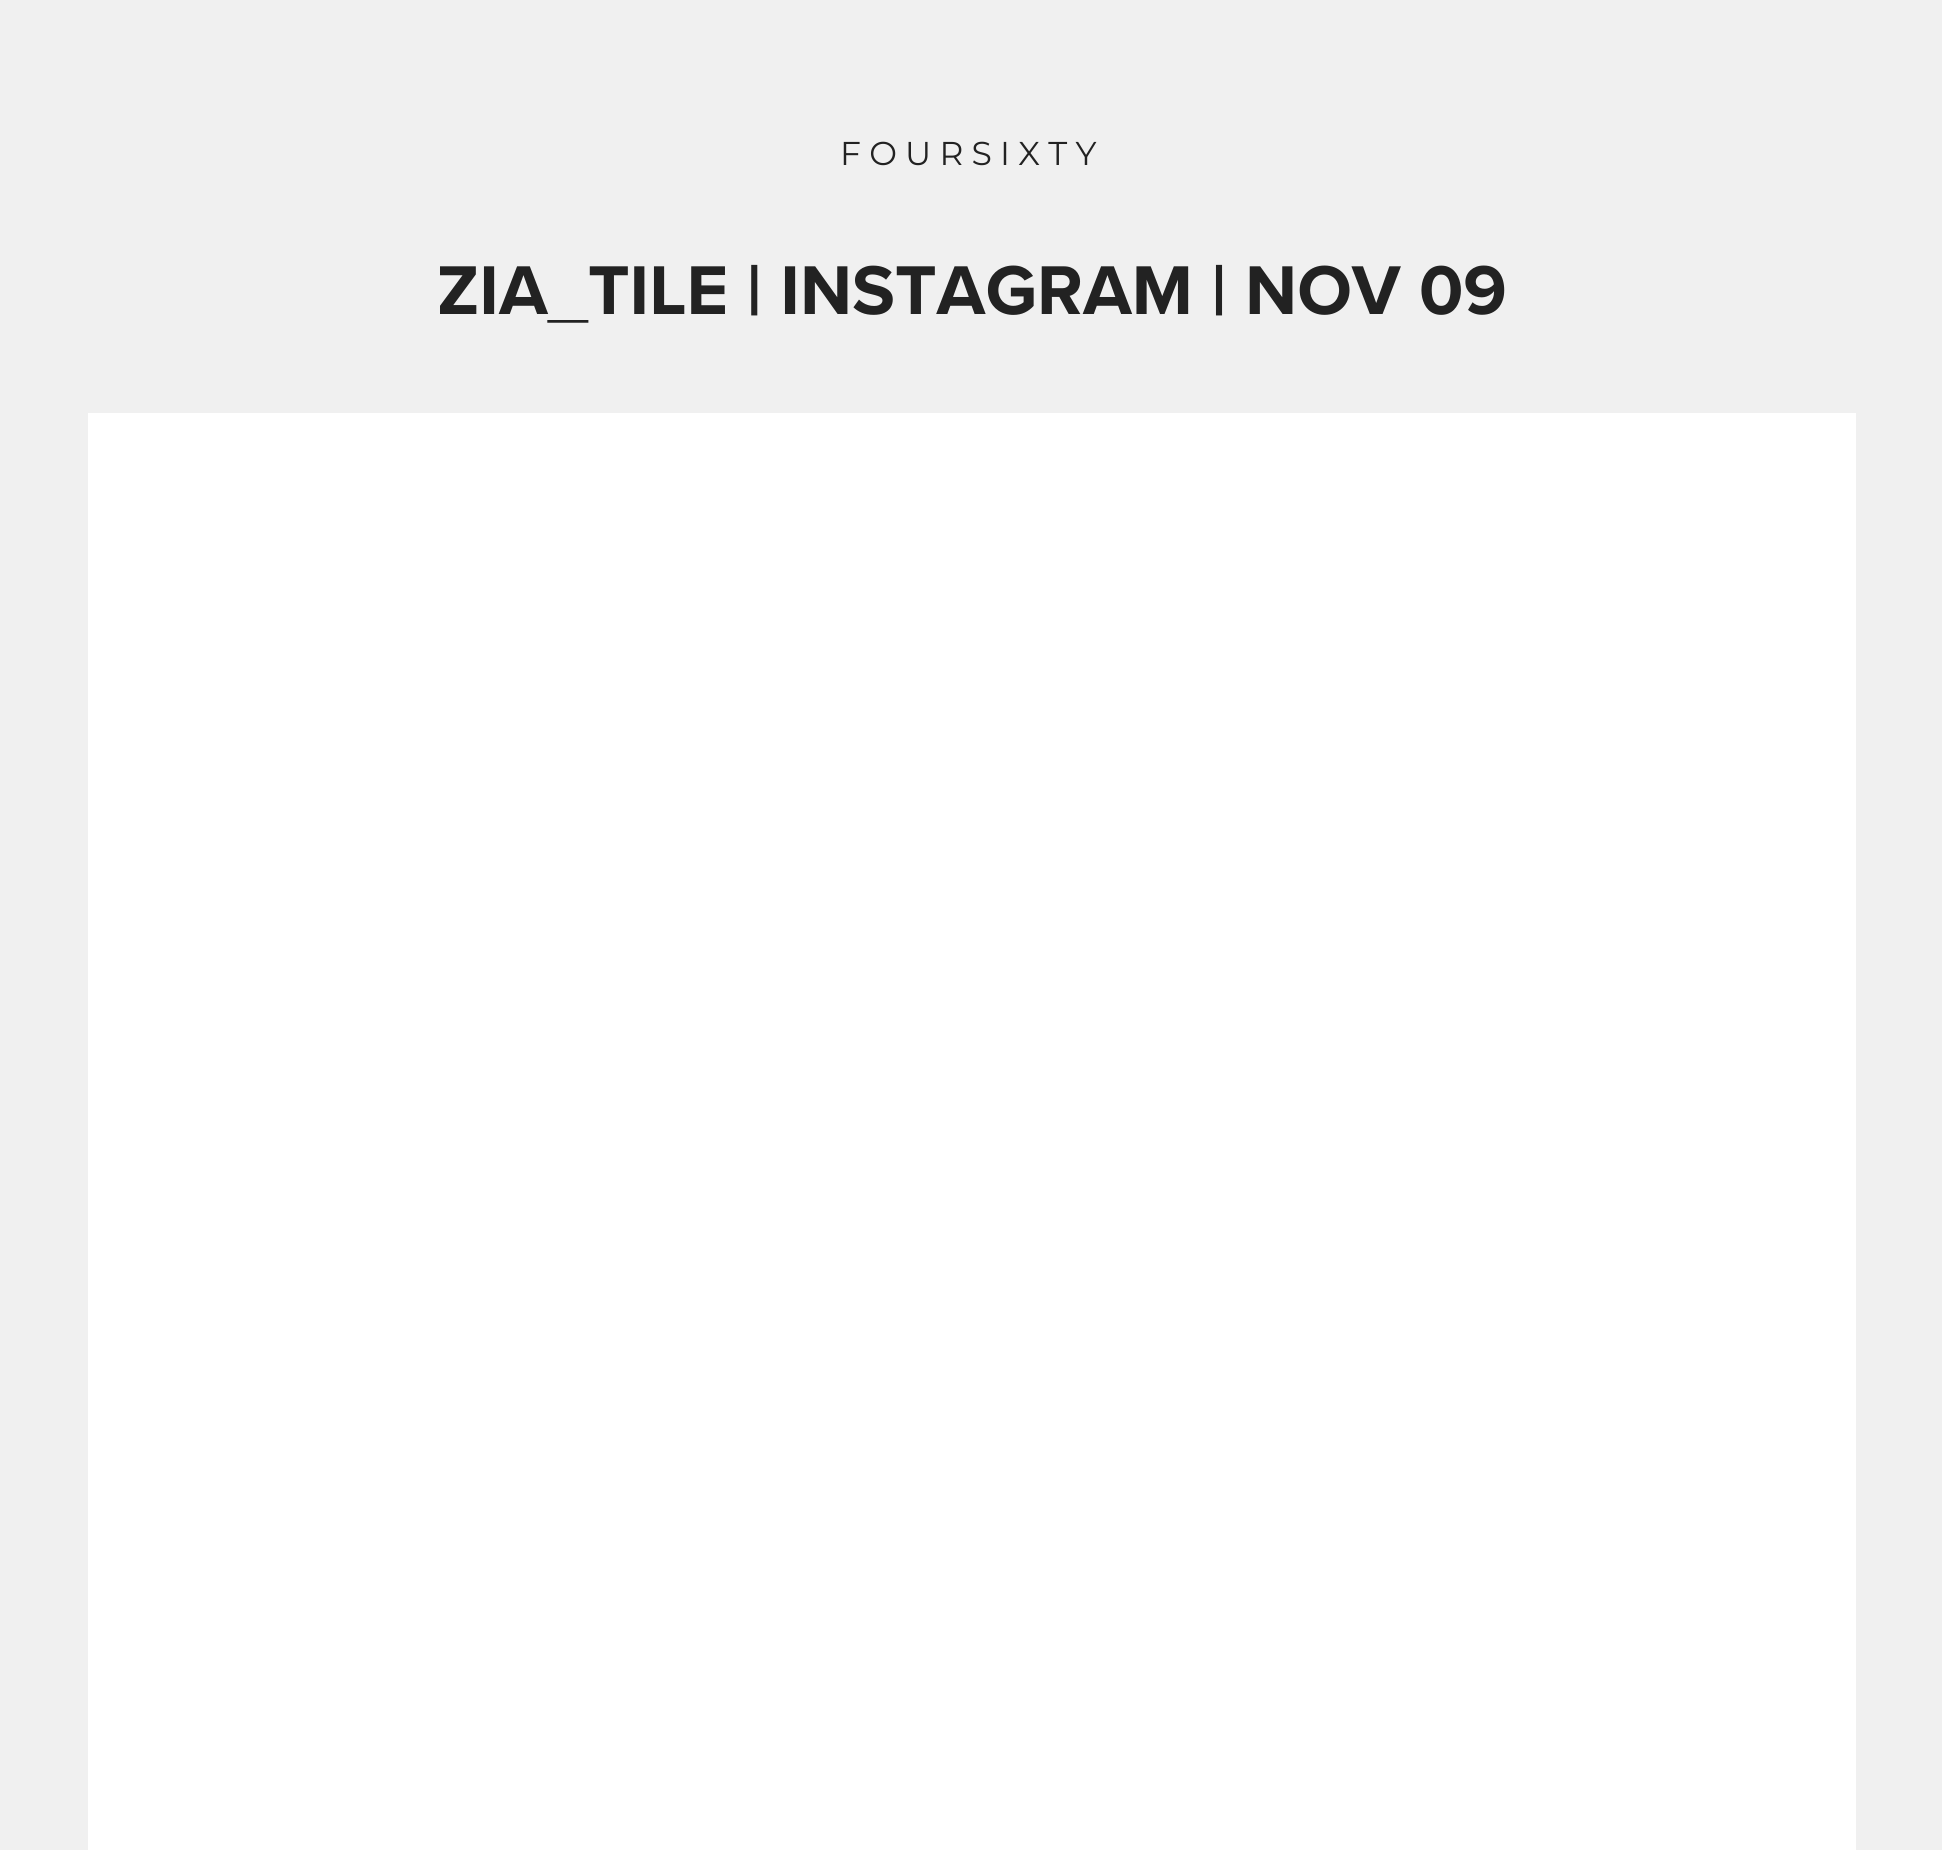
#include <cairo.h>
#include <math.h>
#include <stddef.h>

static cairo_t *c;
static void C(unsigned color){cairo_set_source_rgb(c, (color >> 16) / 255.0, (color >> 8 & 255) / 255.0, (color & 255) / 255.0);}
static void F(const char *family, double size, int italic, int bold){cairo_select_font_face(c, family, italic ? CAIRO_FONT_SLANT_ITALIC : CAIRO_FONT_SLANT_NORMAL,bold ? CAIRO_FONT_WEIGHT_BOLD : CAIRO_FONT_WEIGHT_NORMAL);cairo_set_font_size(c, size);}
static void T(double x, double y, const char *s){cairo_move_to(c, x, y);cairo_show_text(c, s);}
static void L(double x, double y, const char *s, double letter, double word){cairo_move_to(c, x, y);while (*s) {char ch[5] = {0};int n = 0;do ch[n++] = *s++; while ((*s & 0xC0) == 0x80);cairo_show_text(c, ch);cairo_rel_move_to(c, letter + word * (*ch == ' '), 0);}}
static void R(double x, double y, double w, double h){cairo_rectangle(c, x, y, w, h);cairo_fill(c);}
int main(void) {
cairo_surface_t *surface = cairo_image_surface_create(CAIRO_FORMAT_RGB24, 1942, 1850);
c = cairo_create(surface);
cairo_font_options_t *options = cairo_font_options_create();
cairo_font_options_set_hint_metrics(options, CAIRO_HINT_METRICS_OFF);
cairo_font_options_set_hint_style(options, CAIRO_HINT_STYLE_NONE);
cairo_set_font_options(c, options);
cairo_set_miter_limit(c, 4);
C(0xf0f0f0);
cairo_paint(c);
F("Montserrat",33,0,0);
C(0x222222);
L(840,165,"FOURSIXTY",8.25,0);
F("Proxima Nova",71.5,0,1);
T(437,314,"ZIA");
T(588,314,"TILE | INSTAGRAM | NOV 09");
F("Liberation Sans",71.5,0,1);
T(548,314,"_");
C(0xffffff);
R(88,413,1768,1437);
cairo_surface_write_to_png(surface, "o.png");
cairo_font_options_destroy(options);
cairo_destroy(c);
cairo_surface_destroy(surface);
return 0;
}
